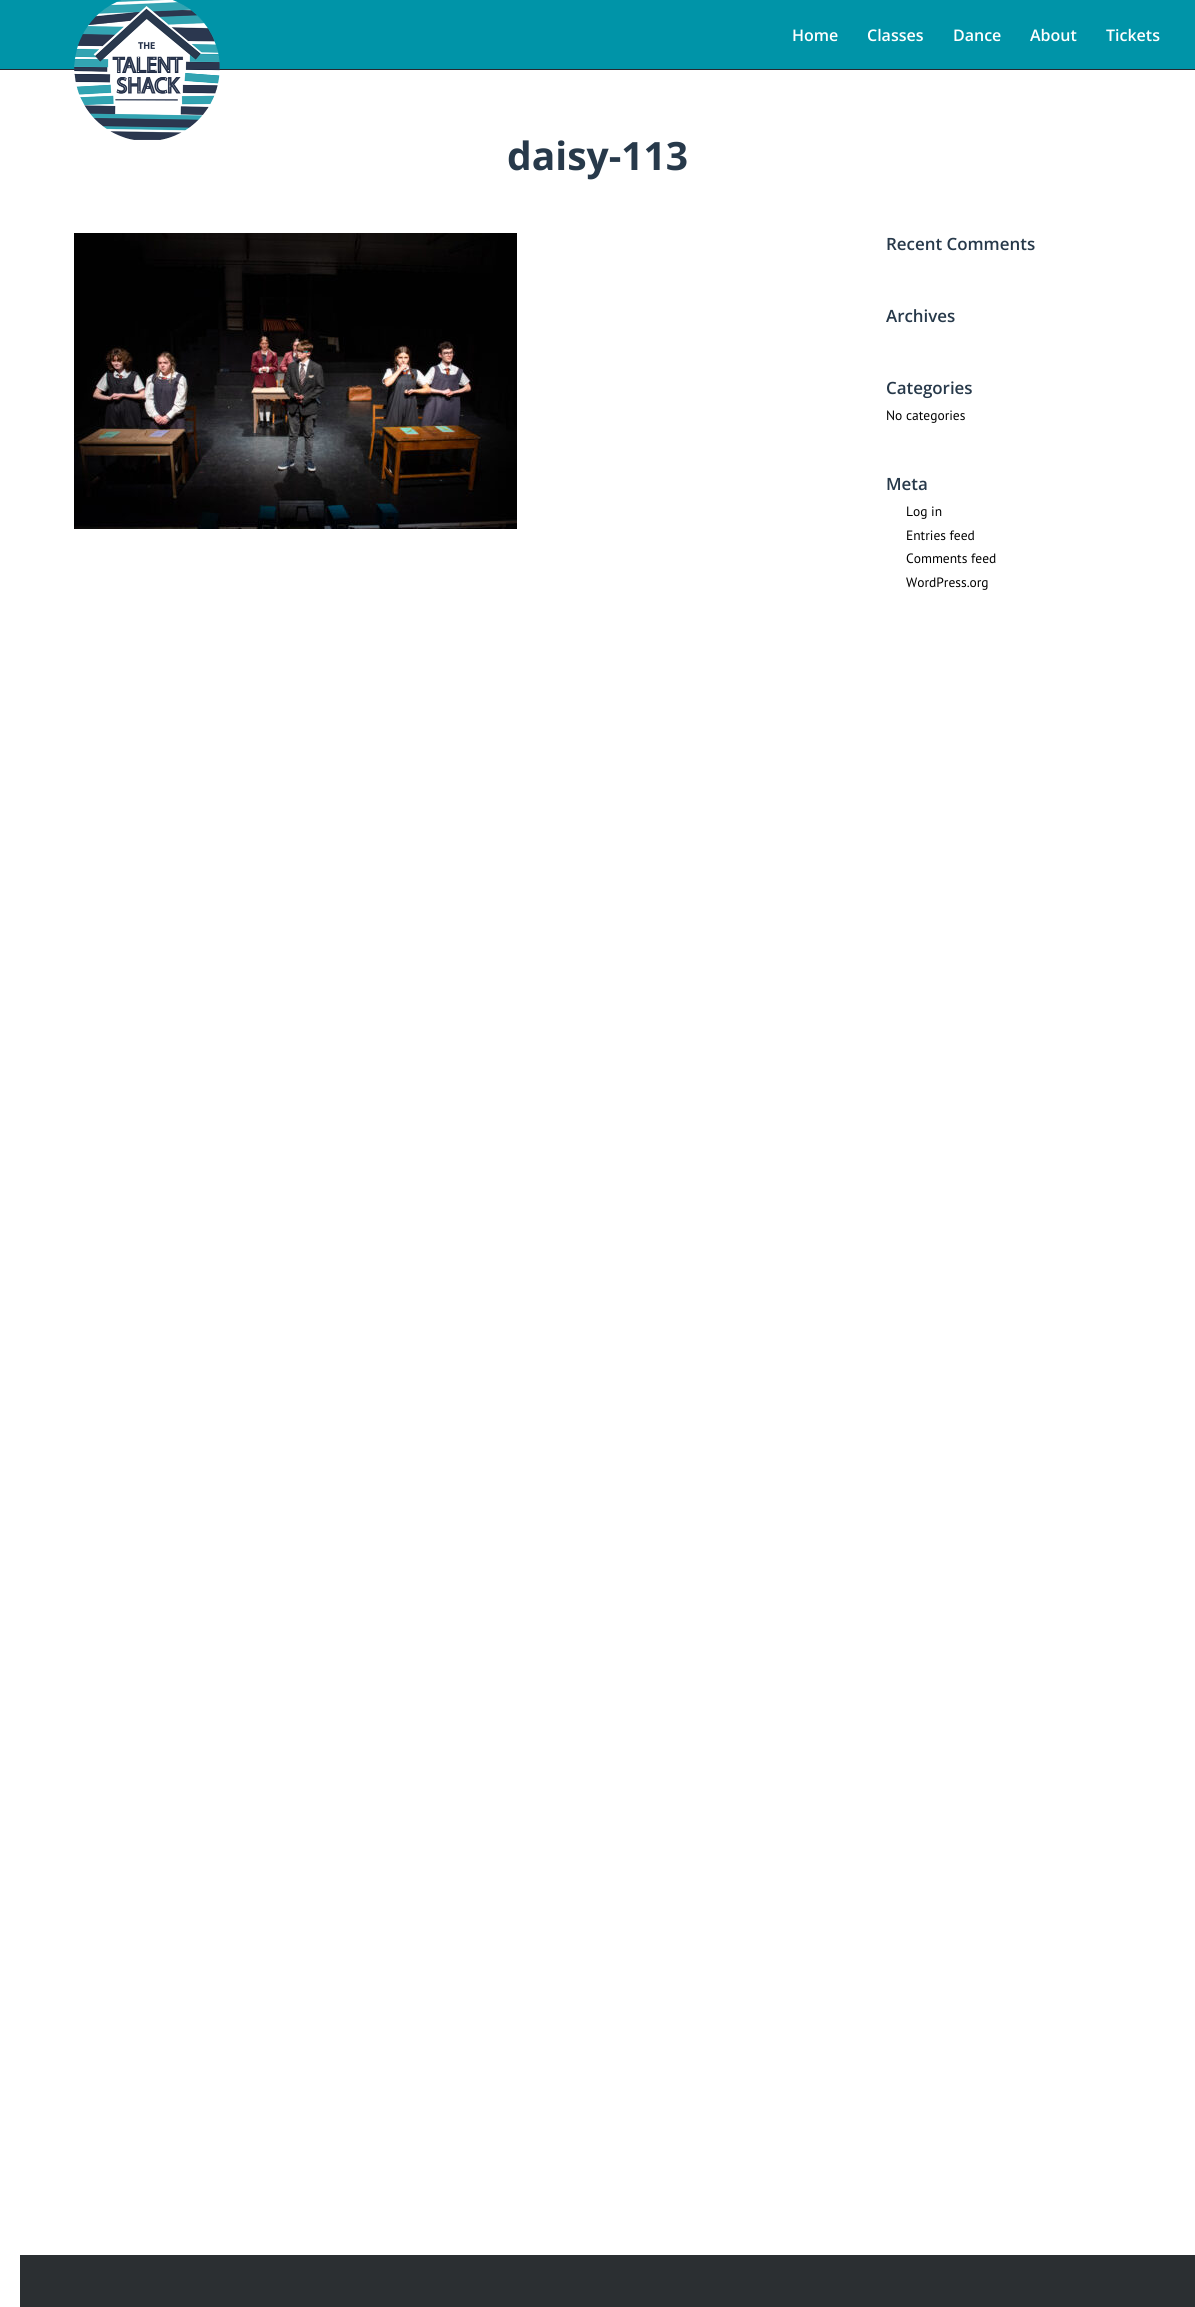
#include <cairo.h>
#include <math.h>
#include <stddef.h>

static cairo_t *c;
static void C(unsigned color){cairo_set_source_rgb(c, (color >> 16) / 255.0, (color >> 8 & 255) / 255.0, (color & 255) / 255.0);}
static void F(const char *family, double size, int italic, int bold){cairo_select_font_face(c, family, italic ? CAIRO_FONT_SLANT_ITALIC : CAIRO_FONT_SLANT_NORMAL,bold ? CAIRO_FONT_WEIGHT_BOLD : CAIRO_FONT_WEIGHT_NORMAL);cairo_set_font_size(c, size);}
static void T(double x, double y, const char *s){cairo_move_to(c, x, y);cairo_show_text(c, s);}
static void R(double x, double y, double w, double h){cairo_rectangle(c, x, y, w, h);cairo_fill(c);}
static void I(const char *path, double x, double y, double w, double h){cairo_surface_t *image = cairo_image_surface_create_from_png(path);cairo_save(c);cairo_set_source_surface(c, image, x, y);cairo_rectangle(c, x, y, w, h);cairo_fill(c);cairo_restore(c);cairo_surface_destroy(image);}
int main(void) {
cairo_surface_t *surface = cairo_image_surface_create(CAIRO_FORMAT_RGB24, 1195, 2307);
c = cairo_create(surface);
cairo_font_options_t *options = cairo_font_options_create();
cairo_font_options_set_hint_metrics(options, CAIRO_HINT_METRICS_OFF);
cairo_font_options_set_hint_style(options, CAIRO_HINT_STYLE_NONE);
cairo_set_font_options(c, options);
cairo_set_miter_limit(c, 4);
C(0xffffff);
cairo_paint(c);
C(0x0094a8);
R(0,0,1195,69);
C(0x272930);
R(0,69,1195,1);
I("1.png",74,0,146,140);
F("Open Sans SemiBold",16,0,0);
C(0xffffff);
T(792,41,"Home");
T(867,41,"Classes");
T(953,41,"Dance");
T(1030,41,"About");
T(1106,41,"Tickets");
F("Open Sans",39,0,1);
C(0x27394a);
T(507,170,"daisy-113");
I("2.png",74,233,443,296);
F("Open Sans SemiBold",16.9,0,0);
T(886,250,"Recent Comments");
T(886,322,"Archives");
T(886,394,"Categories");
F("PT Sans",13.5,0,0);
C(0x000000);
T(886,420,"No categories");
F("Open Sans SemiBold",16.9,0,0);
C(0x27394a);
T(886,490,"Meta");
F("PT Sans",13.5,0,0);
C(0x000000);
T(906,516,"Log in");
T(906,540,"Entries feed");
T(906,563,"Comments feed");
T(906,587,"WordPress.org");
C(0x2b2f32);
R(20,2255,1175,52);
cairo_surface_write_to_png(surface, "o.png");
cairo_font_options_destroy(options);
cairo_destroy(c);
cairo_surface_destroy(surface);
return 0;
}
